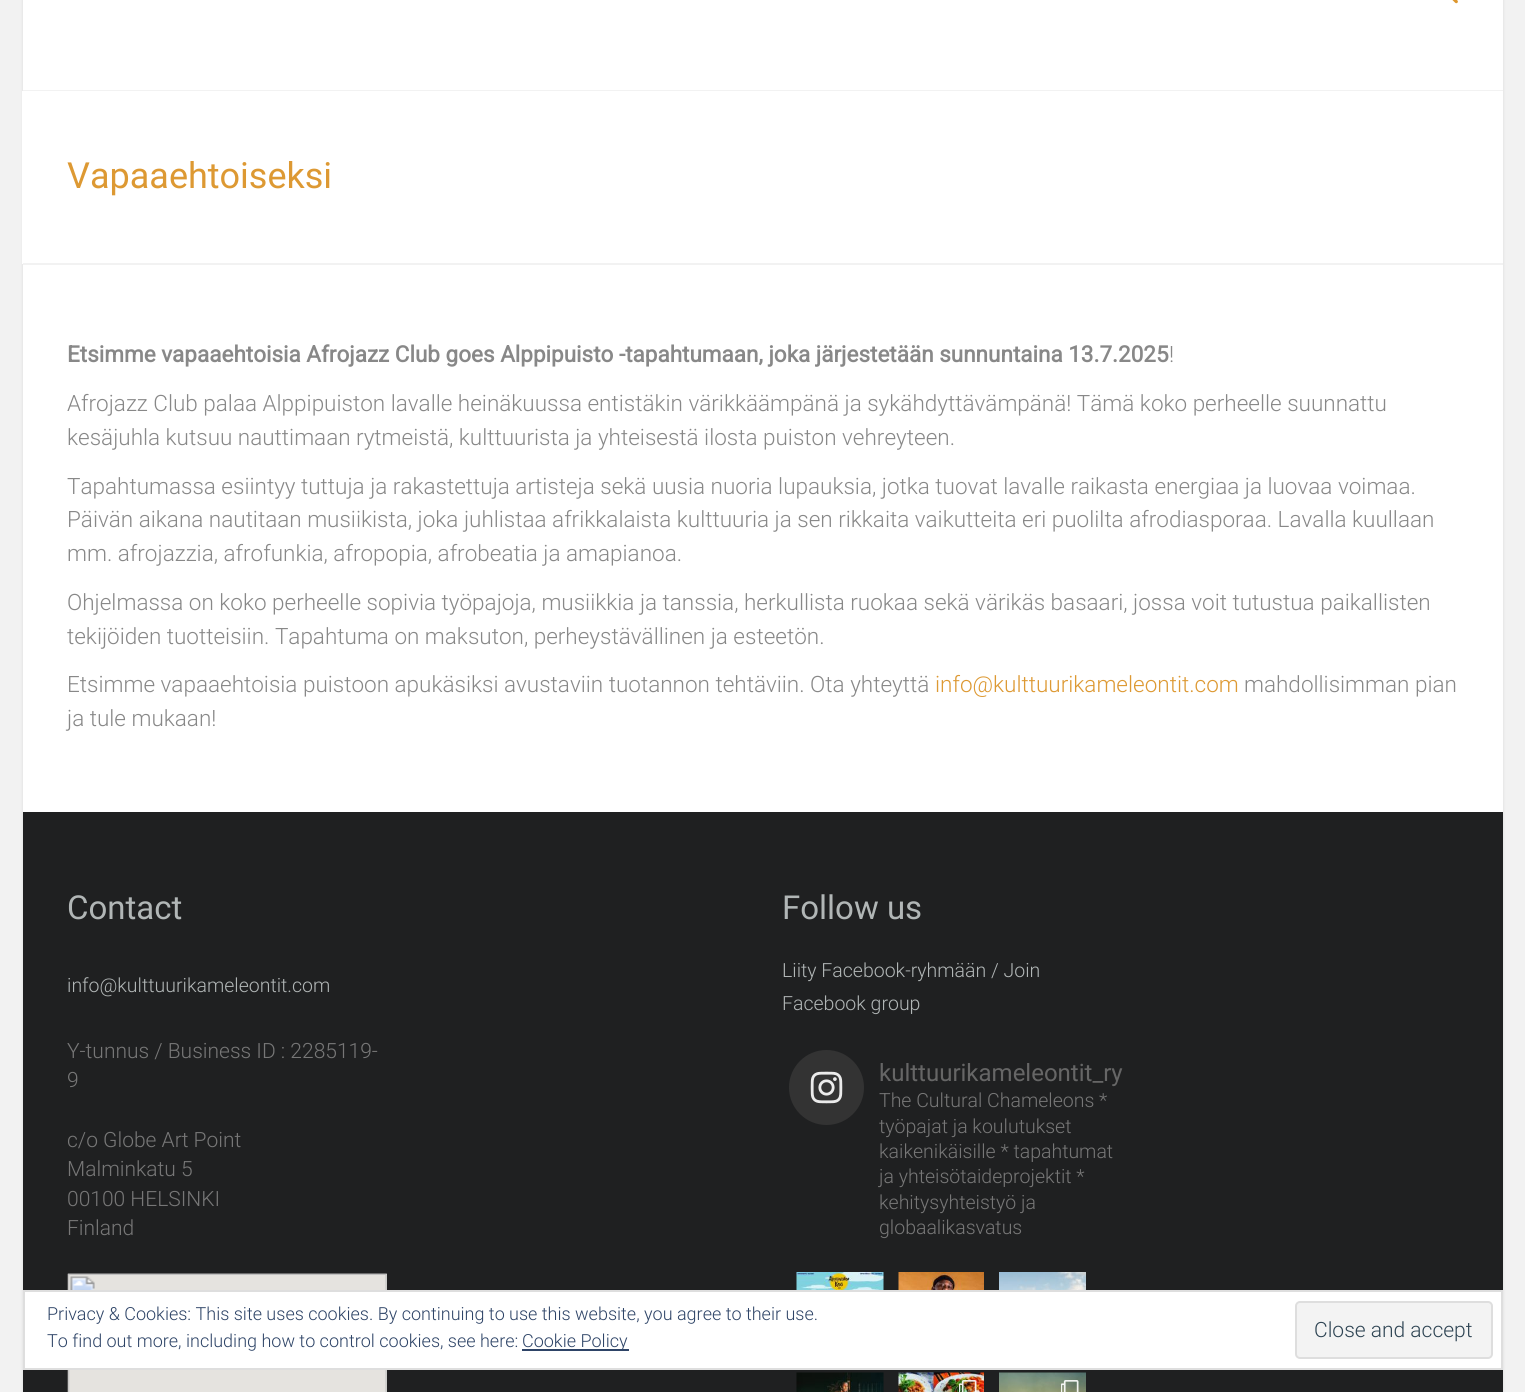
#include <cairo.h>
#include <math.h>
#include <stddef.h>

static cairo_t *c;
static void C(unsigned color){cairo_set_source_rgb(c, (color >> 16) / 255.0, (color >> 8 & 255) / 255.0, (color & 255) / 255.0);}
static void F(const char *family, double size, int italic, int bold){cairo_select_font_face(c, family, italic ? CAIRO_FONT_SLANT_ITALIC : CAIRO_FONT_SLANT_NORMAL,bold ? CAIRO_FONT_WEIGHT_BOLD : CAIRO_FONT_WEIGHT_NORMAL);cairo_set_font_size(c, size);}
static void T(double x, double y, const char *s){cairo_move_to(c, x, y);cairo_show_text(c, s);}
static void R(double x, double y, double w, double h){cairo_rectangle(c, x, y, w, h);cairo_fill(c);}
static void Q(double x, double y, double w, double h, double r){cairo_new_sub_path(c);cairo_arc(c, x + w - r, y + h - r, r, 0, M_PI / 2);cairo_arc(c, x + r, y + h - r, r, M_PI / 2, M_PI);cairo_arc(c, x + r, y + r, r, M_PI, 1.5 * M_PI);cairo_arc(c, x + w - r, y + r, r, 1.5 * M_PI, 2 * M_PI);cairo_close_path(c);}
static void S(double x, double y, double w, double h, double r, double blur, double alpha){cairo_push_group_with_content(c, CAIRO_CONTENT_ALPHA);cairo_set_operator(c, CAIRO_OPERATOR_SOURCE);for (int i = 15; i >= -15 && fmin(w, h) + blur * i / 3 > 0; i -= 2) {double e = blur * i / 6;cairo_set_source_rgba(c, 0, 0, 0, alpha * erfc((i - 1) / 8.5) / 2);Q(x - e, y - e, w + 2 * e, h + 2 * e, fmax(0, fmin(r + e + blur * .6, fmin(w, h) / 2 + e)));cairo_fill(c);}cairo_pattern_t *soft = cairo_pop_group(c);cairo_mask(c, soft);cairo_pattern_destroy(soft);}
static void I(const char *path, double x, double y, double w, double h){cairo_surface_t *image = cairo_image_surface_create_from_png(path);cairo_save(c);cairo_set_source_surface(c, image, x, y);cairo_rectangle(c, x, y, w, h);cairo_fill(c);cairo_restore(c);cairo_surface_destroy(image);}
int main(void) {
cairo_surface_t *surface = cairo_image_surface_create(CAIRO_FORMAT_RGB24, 1525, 1392);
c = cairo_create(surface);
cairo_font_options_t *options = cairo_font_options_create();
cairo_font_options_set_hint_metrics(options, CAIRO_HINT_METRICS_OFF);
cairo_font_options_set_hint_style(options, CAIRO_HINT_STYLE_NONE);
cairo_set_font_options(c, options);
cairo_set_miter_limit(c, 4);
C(0xf2f2f2);
cairo_paint(c);
C(0x000000);
S(23,-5,1480,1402,0,1.5,.1);
C(0xffffff);
R(23,0,1480,812);
C(0xf2f2f2);
R(23,90,1480,1);
I("1.png",1452,0,6,4);
C(0xffffff);
R(22,91,1,173);
C(0xf2f2f2);
R(23,263,1480,2);
F("Roboto",36,0,0);
C(0xdd9933);
T(67,188,"Vapaaehtoiseksi");
F("Roboto",22.5,0,1);
C(0x888888);
T(67,362,"Etsimme vapaaehtoisia Afrojazz Club goes Alppipuisto -tapahtumaan, joka järjestetään sunnuntaina 13.7.2025");
F("Roboto Light",22.5,0,0);
T(1169,362,"!");
T(67,411,"Afrojazz Club palaa Alppipuiston lavalle heinäkuussa entistäkin värikkäämpänä ja sykähdyttävämpänä! Tämä koko perheelle suunnattu");
T(67,445,"kesäjuhla kutsuu nauttimaan rytmeistä, kulttuurista ja yhteisestä ilosta puiston vehreyteen.");
T(67,494,"Tapahtumassa esiintyy tuttuja ja rakastettuja artisteja sekä uusia nuoria lupauksia, jotka tuovat lavalle raikasta energiaa ja luovaa voimaa.");
T(67,527,"Päivän aikana nautitaan musiikista, joka juhlistaa afrikkalaista kulttuuria ja sen rikkaita vaikutteita eri puolilta afrodiasporaa. Lavalla kuullaan");
T(67,561,"mm. afrojazzia, afrofunkia, afropopia, afrobeatia ja amapianoa.");
T(67,610,"Ohjelmassa on koko perheelle sopivia työpajoja, musiikkia ja tanssia, herkullista ruokaa sekä värikäs basaari, jossa voit tutustua paikallisten");
T(67,644,"tekijöiden tuotteisiin. Tapahtuma on maksuton, perheystävällinen ja esteetön.");
T(67,692,"Etsimme vapaaehtoisia puistoon apukäsiksi avustaviin tuotannon tehtäviin. Ota yhteyttä");
C(0xdd9933);
T(935,692,"info@kulttuurikameleontit.com");
C(0x888888);
T(1244,692,"mahdollisimman pian");
T(67,726,"ja tule mukaan!");
C(0x1f2021);
R(23,812,1480,580);
F("Roboto",33,0,0);
C(0xb1b6b6);
T(67,919,"Contact");
F("Roboto Light",19.5,0,0);
T(67,992,"info@kulttuurikameleontit.com");
F("Roboto Light",21,0,0);
C(0x777777);
T(67,1058,"Y-tunnus / Business ID : 2285119-");
T(67,1087,"9");
T(67,1147,"c/o Globe Art Point");
T(67,1176,"Malminkatu 5");
T(67,1206,"00100 HELSINKI");
T(67,1235,"Finland");
I("2.png",67,1273,320,119);
F("Roboto",33,0,0);
C(0xb1b6b6);
T(782,919,"Follow us");
F("Roboto Light",19.5,0,0);
T(782,977,"Liity Facebook-ryhmään / Join");
T(782,1010,"Facebook group");
C(0x333333);
cairo_new_path(c);
cairo_arc(c,826.5,1087.5,37.5,0,2 * M_PI);
cairo_fill(c);
I("3.png",810,1071,33,33);
F("Roboto",24,0,0);
C(0x666666);
T(879,1081,"kulttuurikameleontit_ry");
F("Roboto Light",19.5,0,0);
C(0x777777);
T(879,1107,"The Cultural Chameleons *");
T(879,1133,"työpajat ja koulutukset");
T(879,1158,"kaikenikäisille * tapahtumat");
T(879,1183,"ja yhteisötaideprojektit *");
T(879,1209,"kehitysyhteistyö ja");
T(879,1234,"globaalikasvatus");
I("4.png",796,1272,88,18);
I("5.png",898,1272,86,18);
I("6.png",999,1272,87,18);
I("7.png",796,1372,88,20);
I("8.png",898,1372,86,20);
I("9.png",959,1380,18,12);
I("10.png",999,1372,87,20);
I("11.png",1061,1380,18,12);
C(0xffffff);
cairo_rectangle(c,24,1291,1478,78);
cairo_fill_preserve(c);
C(0xdedede);
cairo_stroke(c);
F("Roboto Light",18,0,0);
C(0x2e4467);
T(47,1320,"Privacy & Cookies: This site uses cookies. By continuing to use this website, you agree to their use.");
T(47,1347,"To find out more, including how to control cookies, see here:");
R(522,1349,107,2);
T(522,1347,"Cookie Policy");
C(0xf3f3f3);
Q(1296,1302,196,56,4);
cairo_fill_preserve(c);
C(0xdedede);
cairo_stroke(c);
F("Roboto Light",21,0,0);
C(0x2e4453);
T(1314,1337,"Close and accept");
cairo_surface_write_to_png(surface, "o.png");
cairo_font_options_destroy(options);
cairo_destroy(c);
cairo_surface_destroy(surface);
return 0;
}
